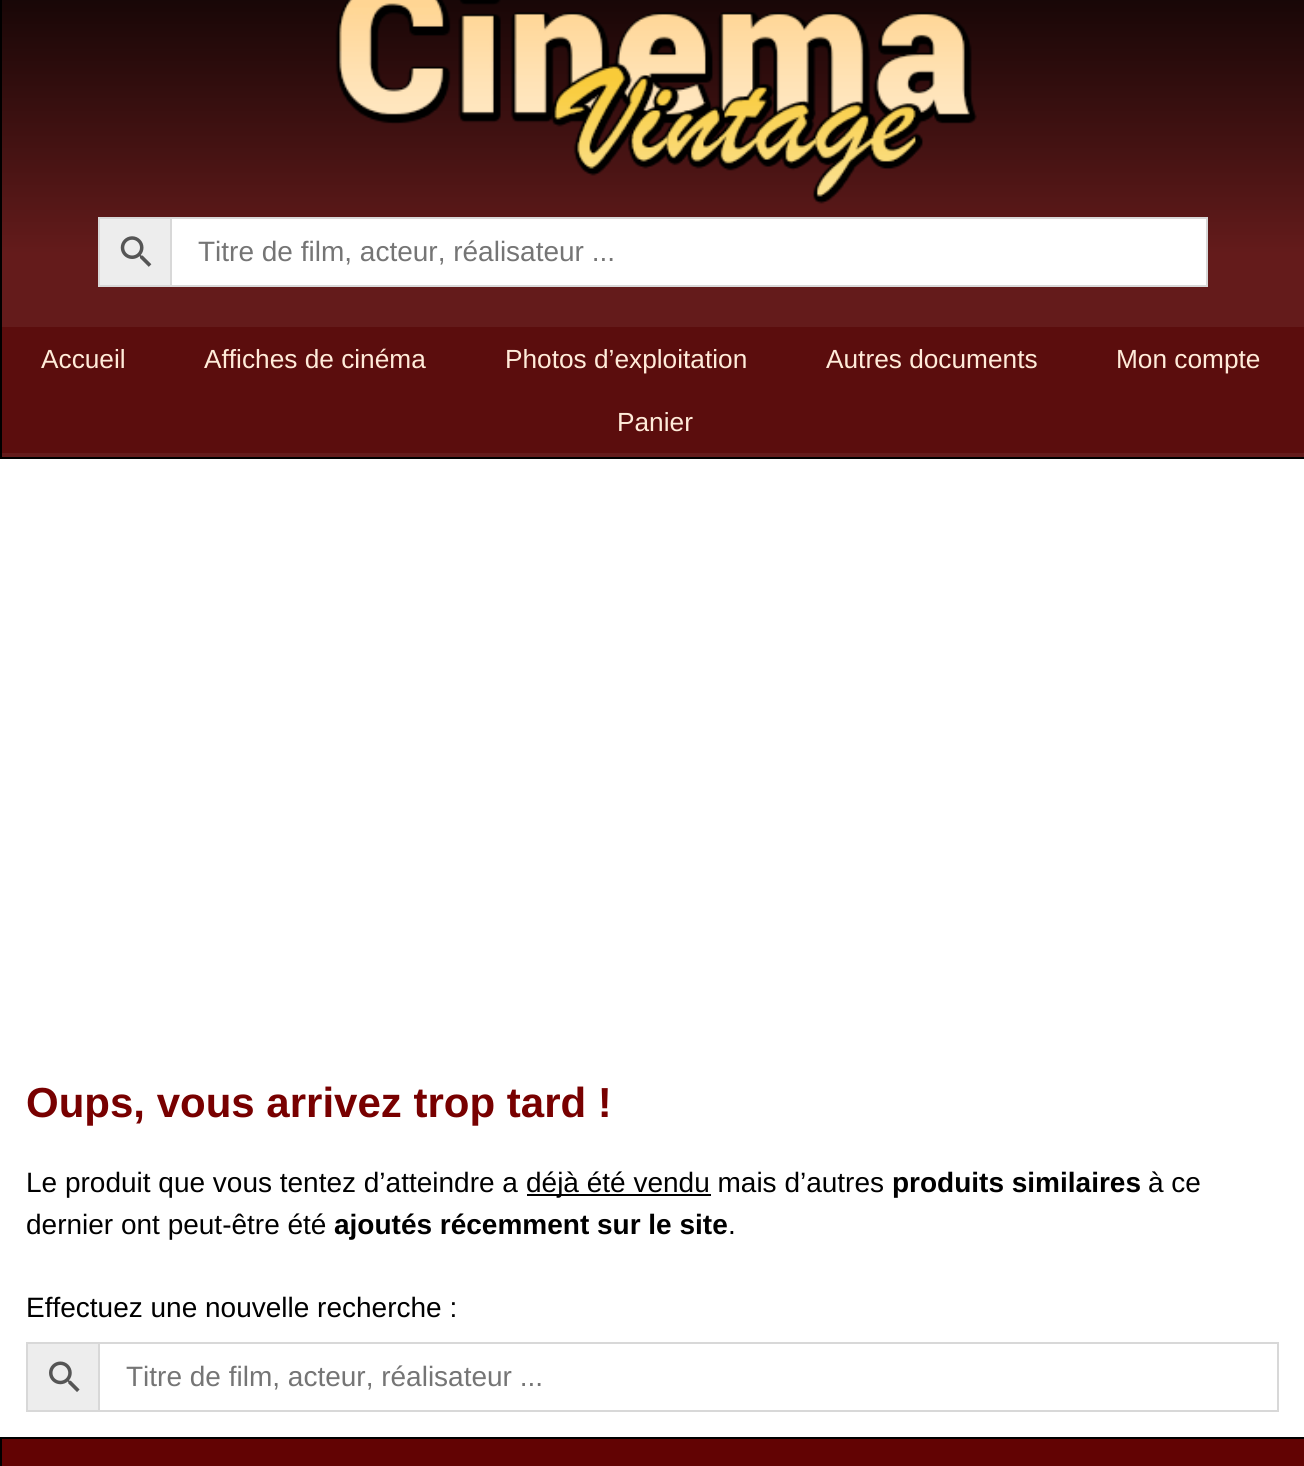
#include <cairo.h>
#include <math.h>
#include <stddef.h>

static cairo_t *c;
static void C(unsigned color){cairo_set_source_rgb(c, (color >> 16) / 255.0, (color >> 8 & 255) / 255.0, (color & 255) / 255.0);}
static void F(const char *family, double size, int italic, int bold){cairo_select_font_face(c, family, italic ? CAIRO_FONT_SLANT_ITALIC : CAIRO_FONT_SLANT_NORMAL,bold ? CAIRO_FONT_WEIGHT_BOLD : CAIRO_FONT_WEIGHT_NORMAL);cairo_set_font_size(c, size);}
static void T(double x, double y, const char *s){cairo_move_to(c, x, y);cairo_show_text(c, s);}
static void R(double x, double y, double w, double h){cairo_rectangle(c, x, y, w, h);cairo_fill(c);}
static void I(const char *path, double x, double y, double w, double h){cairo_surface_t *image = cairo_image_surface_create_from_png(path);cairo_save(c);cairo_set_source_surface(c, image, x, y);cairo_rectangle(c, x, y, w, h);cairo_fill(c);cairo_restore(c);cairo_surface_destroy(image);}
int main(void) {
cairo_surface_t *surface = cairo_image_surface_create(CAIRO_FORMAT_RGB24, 1304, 1466);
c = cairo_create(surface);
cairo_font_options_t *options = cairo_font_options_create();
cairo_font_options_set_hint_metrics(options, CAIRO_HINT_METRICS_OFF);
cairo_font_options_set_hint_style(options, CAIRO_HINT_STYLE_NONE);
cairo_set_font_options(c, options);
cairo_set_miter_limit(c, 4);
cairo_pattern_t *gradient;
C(0xffffff);
cairo_paint(c);
gradient = cairo_pattern_create_linear(653,-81,653,322);
cairo_pattern_add_color_stop_rgba(gradient,0,0,0,0,1);
cairo_pattern_add_color_stop_rgba(gradient,.83,0.392,0.106,0.106,1);
cairo_set_source(c,gradient);
cairo_pattern_destroy(gradient);
R(2,0,1302,322);
C(0x000000);
R(0,0,2,322);
I("1.png",335,0,642,204);
C(0xffffff);
R(172,219,1034,66);
C(0xededed);
cairo_rectangle(c,99,218,72,68);
cairo_fill_preserve(c);
C(0xd8d8d8);
cairo_stroke(c);
I("2.png",120,236,32,31);
cairo_rectangle(c,171,218,1036,68);
cairo_stroke(c);
F("Liberation Sans",28,0,0);
C(0x757575);
T(198,261,"Titre de film, acteur, réalisateur ...");
C(0x641b1b);
R(2,322,1302,135);
C(0x000000);
R(0,457,1304,2);
R(0,322,2,137);
C(0x5b0d0d);
R(2,327,1302,126);
F("Liberation Sans",26.25,0,0);
C(0xffebd9);
T(41,368,"Accueil");
T(204,368,"Affiches de cinéma");
T(505,368,"Photos d’exploitation");
T(826,368,"Autres documents");
T(1116,368,"Mon compte");
T(617,431,"Panier");
F("Liberation Sans",42,0,1);
C(0x780000);
T(26,1117,"Oups, vous arrivez trop tard !");
F("Liberation Sans",28,0,0);
C(0x000000);
T(26,1192,"Le produit que vous tentez d’atteindre a");
R(527,1194,184,2);
T(526,1192,"déjà été vendu mais d’autres");
F("Liberation Sans",28,0,1);
T(892,1192,"produits similaires");
F("Liberation Sans",28,0,0);
T(1148,1192,"à ce");
T(26,1234,"dernier ont peut-être été");
F("Liberation Sans",28,0,1);
T(334,1234,"ajoutés récemment sur le site");
F("Liberation Sans",28,0,0);
T(728,1234,".");
T(26,1317,"Effectuez une nouvelle recherche :");
C(0xededed);
cairo_rectangle(c,27,1343,72,68);
cairo_fill_preserve(c);
C(0xd8d8d8);
cairo_stroke(c);
I("3.png",49,1361,31,31);
cairo_rectangle(c,99,1343,1179,68);
cairo_stroke(c);
C(0x757575);
T(126,1386,"Titre de film, acteur, réalisateur ...");
gradient = cairo_pattern_create_linear(653,1439,653,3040);
cairo_pattern_add_color_stop_rgba(gradient,.26,0.384,0.012,0.012,1);
cairo_pattern_add_color_stop_rgba(gradient,.99,0,0,0,1);
cairo_set_source(c,gradient);
cairo_pattern_destroy(gradient);
R(2,1439,1302,27);
cairo_rectangle(c,1,1438,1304,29);
C(0x000000);
cairo_stroke(c);
cairo_surface_write_to_png(surface, "o.png");
cairo_font_options_destroy(options);
cairo_destroy(c);
cairo_surface_destroy(surface);
return 0;
}
